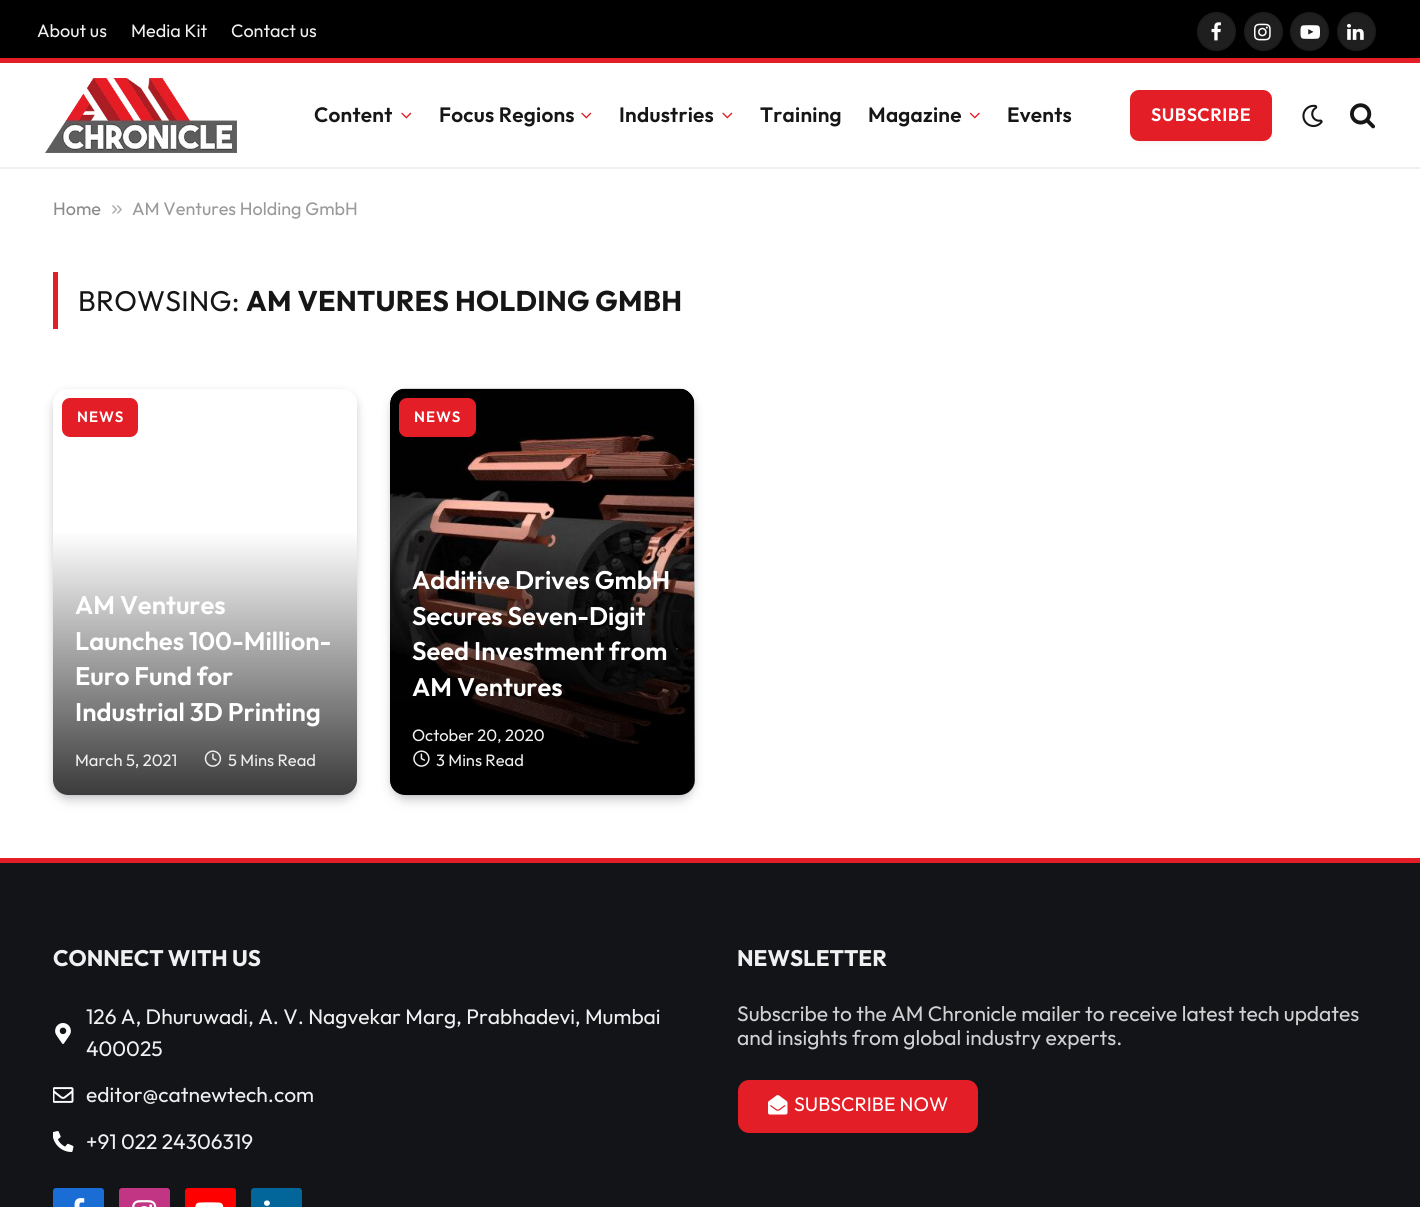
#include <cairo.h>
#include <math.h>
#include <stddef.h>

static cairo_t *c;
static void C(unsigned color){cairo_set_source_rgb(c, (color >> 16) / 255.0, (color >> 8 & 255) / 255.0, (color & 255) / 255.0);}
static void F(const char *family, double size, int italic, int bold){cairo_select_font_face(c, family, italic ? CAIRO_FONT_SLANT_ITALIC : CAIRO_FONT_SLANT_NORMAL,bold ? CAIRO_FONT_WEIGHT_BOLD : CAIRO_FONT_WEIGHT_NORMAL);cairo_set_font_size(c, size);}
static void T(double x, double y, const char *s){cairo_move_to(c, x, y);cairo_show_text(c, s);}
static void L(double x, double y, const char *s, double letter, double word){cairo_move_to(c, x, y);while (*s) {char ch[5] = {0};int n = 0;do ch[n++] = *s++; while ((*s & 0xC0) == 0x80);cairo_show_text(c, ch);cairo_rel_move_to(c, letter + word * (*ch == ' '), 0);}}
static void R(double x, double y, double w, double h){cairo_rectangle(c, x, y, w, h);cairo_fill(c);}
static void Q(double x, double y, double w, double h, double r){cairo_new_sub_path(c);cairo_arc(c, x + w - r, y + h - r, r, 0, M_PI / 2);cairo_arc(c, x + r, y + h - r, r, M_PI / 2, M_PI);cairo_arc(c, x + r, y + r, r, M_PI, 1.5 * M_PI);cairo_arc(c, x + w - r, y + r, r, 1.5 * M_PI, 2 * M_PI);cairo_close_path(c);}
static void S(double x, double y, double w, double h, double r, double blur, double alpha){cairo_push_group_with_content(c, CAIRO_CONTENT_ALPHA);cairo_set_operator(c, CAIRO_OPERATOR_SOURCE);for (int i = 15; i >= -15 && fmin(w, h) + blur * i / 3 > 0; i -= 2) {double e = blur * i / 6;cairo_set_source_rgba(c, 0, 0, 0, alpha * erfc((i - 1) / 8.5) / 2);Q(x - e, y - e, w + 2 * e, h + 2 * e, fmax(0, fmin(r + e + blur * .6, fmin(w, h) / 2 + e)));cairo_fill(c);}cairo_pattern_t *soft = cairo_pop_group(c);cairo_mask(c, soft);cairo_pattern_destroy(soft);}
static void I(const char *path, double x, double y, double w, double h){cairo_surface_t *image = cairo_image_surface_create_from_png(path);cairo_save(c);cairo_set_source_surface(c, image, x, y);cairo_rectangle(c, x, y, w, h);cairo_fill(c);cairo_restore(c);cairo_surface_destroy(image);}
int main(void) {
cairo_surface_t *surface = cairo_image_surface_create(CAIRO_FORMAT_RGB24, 1420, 1207);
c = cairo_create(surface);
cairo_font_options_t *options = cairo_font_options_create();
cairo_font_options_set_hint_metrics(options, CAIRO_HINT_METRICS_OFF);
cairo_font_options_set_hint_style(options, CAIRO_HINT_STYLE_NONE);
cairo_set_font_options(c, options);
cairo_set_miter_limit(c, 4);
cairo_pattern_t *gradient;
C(0xffffff);
cairo_paint(c);
C(0x000000);
R(0,0,1420,58);
C(0xe41e26);
R(0,58,1420,5);
F("Outfit",18,0,0);
C(0xf0f0f0);
T(37,37,"About us");
T(131,37,"Media Kit");
T(231,37,"Contact us");
C(0x1f1f1f);
cairo_new_path(c);
cairo_arc(c,1216.5,31.5,19.5,0,2 * M_PI);
cairo_fill(c);
cairo_arc(c,1216.5,31.5,18.5,0,2 * M_PI);
cairo_set_source_rgba(c,0,0,0,0.09);
cairo_stroke(c);
I("1.png",1211,22,10,19);
C(0x1f1f1f);
cairo_arc(c,1263.5,31.5,19.5,0,2 * M_PI);
cairo_fill(c);
cairo_arc(c,1263.5,31.5,18.5,0,2 * M_PI);
cairo_set_source_rgba(c,0,0,0,0.09);
cairo_stroke(c);
I("2.png",1254,23,17,18);
C(0x1f1f1f);
cairo_arc(c,1309.5,31.5,19.5,0,2 * M_PI);
cairo_fill(c);
cairo_arc(c,1309.5,31.5,18.5,0,2 * M_PI);
cairo_set_source_rgba(c,0,0,0,0.09);
cairo_stroke(c);
I("3.png",1300,25,20,14);
C(0x1f1f1f);
cairo_arc(c,1356.5,31.5,19.5,0,2 * M_PI);
cairo_fill(c);
cairo_arc(c,1356.5,31.5,18.5,0,2 * M_PI);
cairo_set_source_rgba(c,0,0,0,0.09);
cairo_stroke(c);
I("4.png",1347,23,17,17);
C(0xefefef);
R(0,167,1420,2);
I("5.png",45,78,192,75);
F("Outfit SemiBold",20.75,0,0);
C(0x161616);
L(314,122,"Content",.25,0);
I("6.png",401,112,11,7);
L(439,122,"Focus Regions",.25,0);
I("6.png",581,112,11,7);
L(619,122,"Industries",.25,0);
I("6.png",722,112,11,7);
L(760,122,"Training",.25,0);
L(868,122,"Magazine",.25,0);
I("7.png",969,112,11,7);
L(1007,122,"Events",.25,0);
C(0x000000);
S(1136,99,130,39,3,5,.16);
C(0xe41e26);
Q(1130,90,142,51,9);
cairo_fill(c);
F("Outfit SemiBold",18,0,0);
C(0xffffff);
L(1151,121,"SUBSCRIBE",.5,0);
I("8.png",1302,104,21,24);
I("9.png",1350,103,26,26);
F("Outfit",18,0,0);
C(0x8a8a8a);
T(53,215,"Home");
F("Liberation Sans",21,0,0);
C(0xadadad);
T(111,215,"»");
F("Outfit",18,0,0);
C(0x999999);
T(132,215,"AM Ventures Holding GmbH");
C(0xe41e26);
R(53,272,5,57);
F("Outfit",28.5,0,0);
C(0x161616);
L(78,311,"BROWSING:",.25,0);
F("Outfit",28.5,0,1);
L(246,311,"AM VENTURES HOLDING GMBH",.25,0);
cairo_save(c);
cairo_set_fill_rule(c,CAIRO_FILL_RULE_EVEN_ODD);
cairo_new_path(c);
cairo_move_to(c,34,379);
cairo_line_to(c,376,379);
cairo_line_to(c,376,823);
cairo_line_to(c,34,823);
cairo_close_path(c);
cairo_move_to(c,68,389);
cairo_line_to(c,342,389);
cairo_curve_to(c,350.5,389,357,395.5,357,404);
cairo_line_to(c,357,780);
cairo_curve_to(c,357,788.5,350.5,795,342,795);
cairo_line_to(c,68,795);
cairo_curve_to(c,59.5,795,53,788.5,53,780);
cairo_line_to(c,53,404);
cairo_curve_to(c,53,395.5,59.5,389,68,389);
cairo_close_path(c);
cairo_clip(c);
C(0x070a19);
S(62,407,286,388,6,9,.2);
cairo_restore(c);
cairo_save(c);
cairo_set_fill_rule(c,CAIRO_FILL_RULE_EVEN_ODD);
cairo_new_path(c);
cairo_move_to(c,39,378);
cairo_line_to(c,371,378);
cairo_line_to(c,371,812);
cairo_line_to(c,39,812);
cairo_close_path(c);
cairo_move_to(c,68,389);
cairo_line_to(c,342,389);
cairo_curve_to(c,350.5,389,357,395.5,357,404);
cairo_line_to(c,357,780);
cairo_curve_to(c,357,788.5,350.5,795,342,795);
cairo_line_to(c,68,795);
cairo_curve_to(c,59.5,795,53,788.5,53,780);
cairo_line_to(c,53,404);
cairo_curve_to(c,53,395.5,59.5,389,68,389);
cairo_close_path(c);
cairo_clip(c);
C(0x070a19);
S(54,393,302,404,14,4.5,.2);
cairo_restore(c);
gradient = cairo_pattern_create_linear(205,389,205,795);
cairo_pattern_add_color_stop_rgba(gradient,.35,0,0,0,0);
cairo_pattern_add_color_stop_rgba(gradient,1,0,0,0,.77);
cairo_set_source(c,gradient);
cairo_pattern_destroy(gradient);
Q(53,389,304,406,15);
cairo_fill(c);
C(0xe41e26);
Q(62,398,76,39,8);
cairo_fill(c);
F("Outfit SemiBold",15,0,0);
C(0xffffff);
L(77,422,"NEWS",1,0);
F("Outfit SemiBold",25.5,0,0);
T(75,614,"AM Ventures");
T(75,650,"Launches 100-Million-");
T(75,685,"Euro Fund for");
T(75,721,"Industrial 3D Printing");
F("Outfit",16.5,0,0);
C(0xf0f0f0);
T(75,766,"March 5, 2021");
I("10.png",204,750,18,17);
T(228,766,"5 Mins Read");
C(0x070a19);
S(399,407,287,388,6,9,.2);
S(392,393,301,404,14,4.5,.2);
I("11.png",390,388,305,407);
gradient = cairo_pattern_create_linear(542,389,542,795);
cairo_pattern_add_color_stop_rgba(gradient,.35,0,0,0,0);
cairo_pattern_add_color_stop_rgba(gradient,1,0,0,0,.77);
cairo_set_source(c,gradient);
cairo_pattern_destroy(gradient);
Q(390,389,305,406,15);
cairo_fill(c);
C(0xe41e26);
Q(399,398,77,39,8);
cairo_fill(c);
F("Outfit SemiBold",15,0,0);
C(0xffffff);
L(414,422,"NEWS",1,0);
F("Outfit SemiBold",25.5,0,0);
T(412,589,"Additive Drives GmbH");
T(412,625,"Secures Seven-Digit");
T(412,660,"Seed Investment from");
T(412,696,"AM Ventures");
F("Outfit",16.5,0,0);
C(0xf0f0f0);
T(412,741,"October 20, 2020");
I("12.png",413,750,17,17);
T(436,766,"3 Mins Read");
C(0x121418);
R(0,863,1420,344);
C(0xe41e26);
R(0,858,1420,5);
F("Outfit",22.5,0,1);
C(0xf0f0f0);
T(53,966,"CONNECT WITH US");
I("13.png",55,1023,16,21);
F("Outfit",21,0,0);
T(86,1024,"126 A, Dhuruwadi, A. V. Nagvekar Marg, Prabhadevi, Mumbai");
T(86,1056,"400025");
I("14.png",53,1087,21,16);
T(86,1102,"editor@catnewtech.com");
I("15.png",53,1131,21,21);
T(86,1149,"+91 022 24306319");
C(0x1a6dd4);
Q(53,1188,51,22,3);
cairo_fill(c);
I("16.png",74,1198,11,9);
C(0xc13584);
Q(119,1188,51,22,3);
cairo_fill(c);
I("17.png",132,1200,25,7);
C(0xff0000);
Q(185,1188,51,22,3);
cairo_fill(c);
I("18.png",195,1202,29,5);
C(0x02669a);
Q(251,1188,51,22,3);
cairo_fill(c);
I("19.png",264,1200,6,6);
F("Outfit",22.5,0,1);
C(0xf0f0f0);
T(737,966,"NEWSLETTER");
F("Outfit",21,0,0);
C(0xd1d1d1);
T(737,1021,"Subscribe to the AM Chronicle mailer to receive latest tech updates");
T(737,1045,"and insights from global industry experts.");
C(0xe41e26);
Q(738,1080,240,53,11);
cairo_fill(c);
I("20.png",768,1095,20,20);
F("Outfit",19.5,0,0);
C(0xffffff);
T(794,1111,"SUBSCRIBE NOW");
cairo_surface_write_to_png(surface, "o.png");
cairo_font_options_destroy(options);
cairo_destroy(c);
cairo_surface_destroy(surface);
return 0;
}
